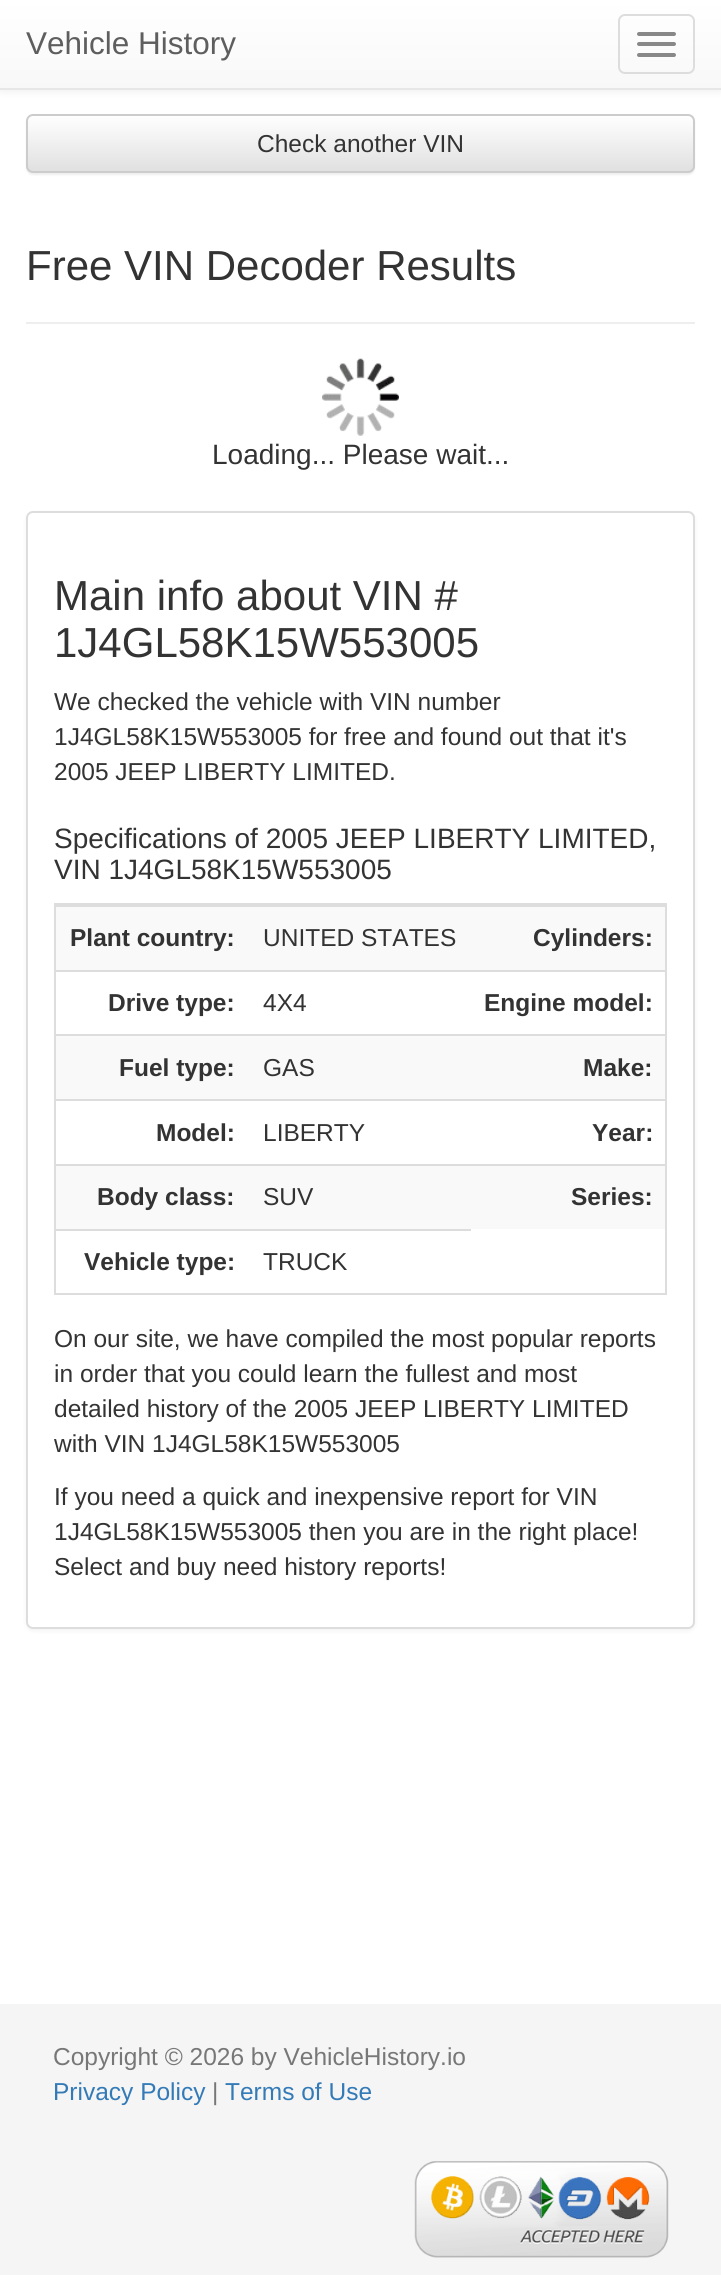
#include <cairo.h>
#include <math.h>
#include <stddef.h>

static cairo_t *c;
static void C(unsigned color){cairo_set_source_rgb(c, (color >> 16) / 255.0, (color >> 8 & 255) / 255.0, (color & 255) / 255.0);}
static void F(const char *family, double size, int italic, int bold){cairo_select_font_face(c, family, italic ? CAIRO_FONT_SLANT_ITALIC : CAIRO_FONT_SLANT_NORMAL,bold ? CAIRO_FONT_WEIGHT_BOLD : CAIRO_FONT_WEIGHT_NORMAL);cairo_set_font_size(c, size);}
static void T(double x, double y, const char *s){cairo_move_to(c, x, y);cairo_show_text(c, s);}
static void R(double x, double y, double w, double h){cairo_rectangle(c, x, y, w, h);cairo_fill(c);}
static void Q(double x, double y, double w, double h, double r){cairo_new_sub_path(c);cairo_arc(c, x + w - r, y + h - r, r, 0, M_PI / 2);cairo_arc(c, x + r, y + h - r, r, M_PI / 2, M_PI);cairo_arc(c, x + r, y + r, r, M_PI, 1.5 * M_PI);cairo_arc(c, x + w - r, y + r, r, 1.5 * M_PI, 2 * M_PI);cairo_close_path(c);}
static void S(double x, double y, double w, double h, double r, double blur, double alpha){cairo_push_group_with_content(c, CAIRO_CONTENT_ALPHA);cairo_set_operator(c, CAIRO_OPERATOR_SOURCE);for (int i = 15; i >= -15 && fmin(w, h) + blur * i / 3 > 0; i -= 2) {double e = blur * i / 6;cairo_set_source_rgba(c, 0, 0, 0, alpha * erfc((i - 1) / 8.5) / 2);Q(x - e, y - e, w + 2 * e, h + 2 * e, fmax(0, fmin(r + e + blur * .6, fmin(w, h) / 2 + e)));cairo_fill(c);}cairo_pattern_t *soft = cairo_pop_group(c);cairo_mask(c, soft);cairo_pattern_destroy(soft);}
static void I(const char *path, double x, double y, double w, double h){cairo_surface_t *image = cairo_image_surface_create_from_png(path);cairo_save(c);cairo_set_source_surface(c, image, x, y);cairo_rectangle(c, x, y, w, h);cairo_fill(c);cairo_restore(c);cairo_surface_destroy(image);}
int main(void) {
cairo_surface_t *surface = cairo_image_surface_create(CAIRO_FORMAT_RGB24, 721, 2275);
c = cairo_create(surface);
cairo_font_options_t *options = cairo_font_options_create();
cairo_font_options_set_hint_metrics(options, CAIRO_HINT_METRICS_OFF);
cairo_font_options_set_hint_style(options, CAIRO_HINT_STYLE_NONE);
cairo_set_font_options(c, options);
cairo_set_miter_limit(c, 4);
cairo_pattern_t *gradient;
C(0xffffff);
cairo_paint(c);
C(0x000000);
S(0,2,721,89,0,4.5,.07);
gradient = cairo_pattern_create_linear(361,0,361,88);
cairo_pattern_add_color_stop_rgba(gradient,0,1,1,1,1);
cairo_pattern_add_color_stop_rgba(gradient,1,0.973,0.973,0.973,1);
cairo_set_source(c,gradient);
cairo_pattern_destroy(gradient);
R(0,0,721,88);
C(0xe7e7e7);
R(0,88,721,2);
F("Liberation Sans",31.5,0,0);
C(0x5e5e5e);
T(26,54,"Vehicle History");
Q(619,15,75,58,6);
C(0xdddddd);
cairo_stroke(c);
C(0x888888);
Q(637,32,39,4,2);
cairo_fill(c);
Q(637,42,39,4,2);
cairo_fill(c);
Q(637,53,39,4,2);
cairo_fill(c);
C(0x000000);
S(26,116,669,59,7,1,.07);
cairo_save(c);
Q(26,114,669,59,7);
cairo_clip(c);
gradient = cairo_pattern_create_linear(361,115,361,172);
cairo_pattern_add_color_stop_rgba(gradient,0,1,1,1,1);
cairo_pattern_add_color_stop_rgba(gradient,1,0.878,0.878,0.878,1);
cairo_set_source(c,gradient);
cairo_pattern_destroy(gradient);
R(26,116,669,56);
cairo_restore(c);
Q(27,115,667,57,6);
C(0xcccccc);
cairo_stroke(c);
F("Liberation Sans",24.5,0,0);
C(0x333333);
T(257,152,"Check another VIN");
C(0xeeeeee);
R(26,322,669,2);
F("Liberation Sans",42,0,0);
C(0x333333);
T(26,280,"Free VIN Decoder Results");
I("1.png",322,358,77,78);
F("Liberation Sans",28,0,0);
T(212,464,"Loading... Please wait...");
C(0x000000);
S(26,513,669,1118,7,2,.05);
C(0xffffff);
Q(27,512,667,1116,6);
cairo_fill_preserve(c);
C(0xdddddd);
cairo_stroke(c);
F("Liberation Sans",42,0,0);
C(0x333333);
T(54,610,"Main info about VIN #");
T(54,657,"1J4GL58K15W553005");
F("Liberation Sans",24.5,0,0);
T(54,710,"We checked the vehicle with VIN number");
T(54,745,"1J4GL58K15W553005 for free and found out that it's");
T(54,780,"2005 JEEP LIBERTY LIMITED.");
F("Liberation Sans",28,0,0);
T(54,848,"Specifications of 2005 JEEP LIBERTY LIMITED,");
T(54,879,"VIN 1J4GL58K15W553005");
cairo_rectangle(c,55,904,611,390);
C(0xdddddd);
cairo_stroke(c);
C(0xf9f9f9);
R(56,907,609,63);
F("Liberation Sans",24.5,0,1);
C(0x333333);
T(70,946,"Plant country:");
F("Liberation Sans",24.5,0,0);
T(263,946,"UNITED STATES");
C(0xdddddd);
R(56,905,609,2);
F("Liberation Sans",24.5,0,1);
C(0x333333);
T(533,946,"Сylinders:");
T(108,1011,"Drive type:");
F("Liberation Sans",24.5,0,0);
T(263,1011,"4X4");
C(0xdddddd);
R(56,970,609,2);
F("Liberation Sans",24.5,0,1);
C(0x333333);
T(484,1011,"Engine model:");
C(0xf9f9f9);
R(56,1036,609,63);
C(0x333333);
T(119,1076,"Fuel type:");
F("Liberation Sans",24.5,0,0);
T(263,1076,"GAS");
C(0xdddddd);
R(56,1034,609,2);
F("Liberation Sans",24.5,0,1);
C(0x333333);
T(583,1076,"Make:");
T(156,1141,"Model:");
F("Liberation Sans",24.5,0,0);
T(263,1141,"LIBERTY");
C(0xdddddd);
R(56,1099,609,2);
F("Liberation Sans",24.5,0,1);
C(0x333333);
T(592,1141,"Year:");
C(0xf9f9f9);
R(56,1166,609,63);
C(0x333333);
T(97,1205,"Body class:");
F("Liberation Sans",24.5,0,0);
T(263,1205,"SUV");
C(0xdddddd);
R(56,1164,609,2);
F("Liberation Sans",24.5,0,1);
C(0x333333);
T(571,1205,"Series:");
T(84,1270,"Vehicle type:");
C(0xdddddd);
R(56,1229,415,2);
F("Liberation Sans",24.5,0,0);
C(0x333333);
T(263,1270,"TRUCK");
T(54,1347,"On our site, we have compiled the most popular reports");
T(54,1382,"in order that you could learn the fullest and most");
T(54,1417,"detailed history of the 2005 JEEP LIBERTY LIMITED");
T(54,1452,"with VIN 1J4GL58K15W553005");
T(54,1505,"If you need a quick and inexpensive report for VIN");
T(54,1540,"1J4GL58K15W553005 then you are in the right place!");
T(54,1575,"Select and buy need history reports!");
C(0xf5f5f5);
R(0,2004,721,271);
C(0x777777);
T(53,2065,"Copyright © 2026 by VehicleHistory.io");
C(0x337ab7);
T(53,2100,"Privacy Policy");
C(0x777777);
T(212,2100,"|");
C(0x337ab7);
T(225,2100,"Terms of Use");
I("2.png",414,2161,255,97);
cairo_surface_write_to_png(surface, "o.png");
cairo_font_options_destroy(options);
cairo_destroy(c);
cairo_surface_destroy(surface);
return 0;
}
